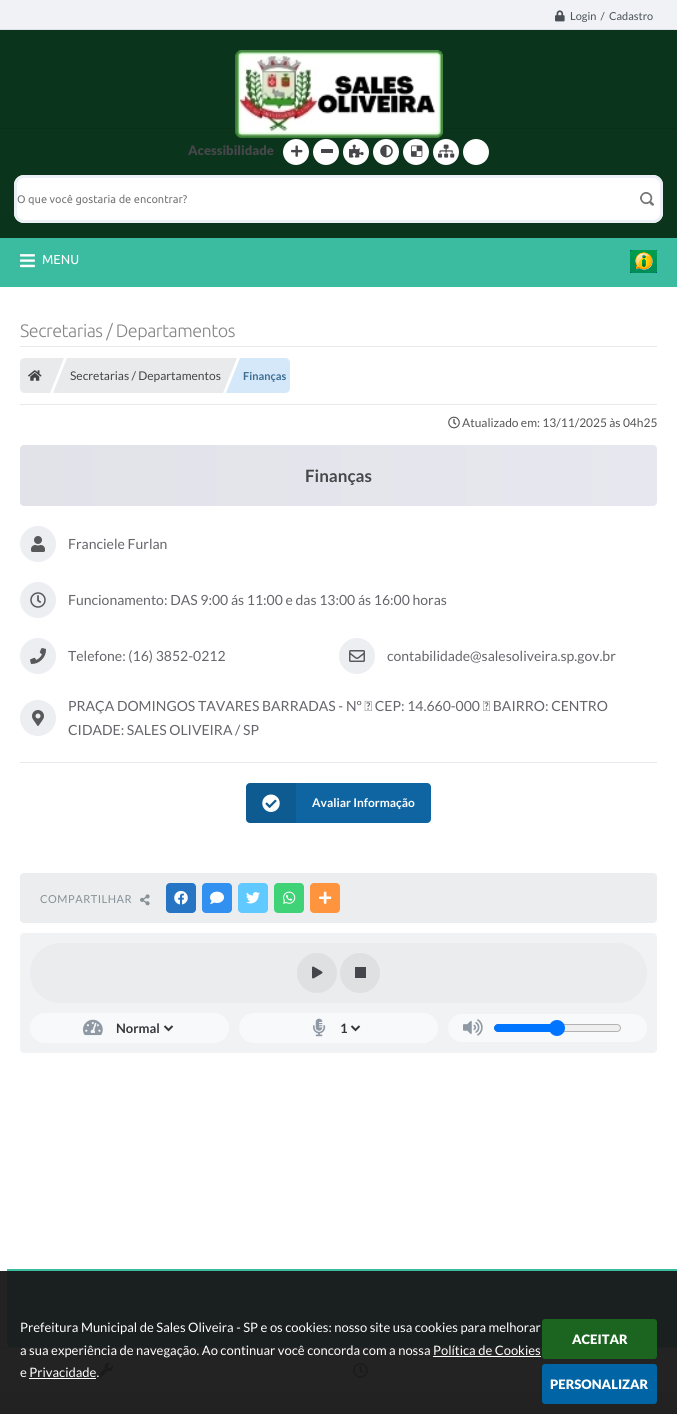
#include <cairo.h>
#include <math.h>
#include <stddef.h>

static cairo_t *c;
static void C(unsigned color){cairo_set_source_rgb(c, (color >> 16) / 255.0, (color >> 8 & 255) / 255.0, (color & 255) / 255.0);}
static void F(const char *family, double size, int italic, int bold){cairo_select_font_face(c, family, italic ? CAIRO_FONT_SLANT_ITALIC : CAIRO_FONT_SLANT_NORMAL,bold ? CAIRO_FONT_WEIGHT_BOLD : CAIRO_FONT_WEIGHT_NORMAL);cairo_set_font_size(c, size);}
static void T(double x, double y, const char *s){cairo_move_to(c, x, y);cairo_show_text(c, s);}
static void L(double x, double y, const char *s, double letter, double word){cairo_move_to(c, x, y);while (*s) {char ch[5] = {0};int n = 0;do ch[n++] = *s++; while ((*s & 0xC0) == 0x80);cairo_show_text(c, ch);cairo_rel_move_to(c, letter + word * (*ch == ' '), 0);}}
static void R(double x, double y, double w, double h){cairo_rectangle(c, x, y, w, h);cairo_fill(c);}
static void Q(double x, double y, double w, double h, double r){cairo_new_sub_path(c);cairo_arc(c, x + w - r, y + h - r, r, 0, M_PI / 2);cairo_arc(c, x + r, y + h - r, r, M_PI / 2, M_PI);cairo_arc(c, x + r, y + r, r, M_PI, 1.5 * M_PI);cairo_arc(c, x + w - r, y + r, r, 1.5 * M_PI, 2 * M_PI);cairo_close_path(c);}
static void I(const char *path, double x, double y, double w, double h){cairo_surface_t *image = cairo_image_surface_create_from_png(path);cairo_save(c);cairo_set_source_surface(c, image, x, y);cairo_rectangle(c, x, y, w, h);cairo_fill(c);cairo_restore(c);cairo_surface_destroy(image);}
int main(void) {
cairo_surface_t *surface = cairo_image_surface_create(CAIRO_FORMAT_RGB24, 677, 1414);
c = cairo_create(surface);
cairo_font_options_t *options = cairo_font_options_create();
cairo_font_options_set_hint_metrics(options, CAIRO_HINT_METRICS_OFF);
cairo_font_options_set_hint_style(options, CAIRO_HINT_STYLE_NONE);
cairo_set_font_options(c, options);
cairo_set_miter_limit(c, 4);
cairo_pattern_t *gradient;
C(0xffffff);
cairo_paint(c);
C(0xf0f2f5);
R(0,0,677,29);
C(0xdde1e5);
R(0,29,677,1);
I("1.png",555,10,10,12);
F("Lato",11,0,0);
C(0x495156);
T(570,20,"Login  /  Cadastro");
C(0x3bbca1);
cairo_new_path(c);
cairo_move_to(c,7,1269);
cairo_line_to(c,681,1269);
cairo_line_to(c,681,1343);
cairo_curve_to(c,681,1345,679,1347,677,1347);
cairo_line_to(c,11,1347);
cairo_curve_to(c,9,1347,7,1345,7,1343);
cairo_close_path(c);
cairo_fill(c);
R(9,1346,2,1);
C(0xd9d9d9);
R(0,1347,677,1);
R(0,1393,677,1);
I("29.png",98,1362,15,16);
I("30.png",353,1363,15,15);
C(0xf1f3f6);
R(0,1394,677,20);
cairo_set_source_rgba(c,0.098,0.098,0.098,0.95);
R(0,1271,677,143);
F("Lato",13,0,0);
C(0xffffff);
T(20,1332,"Prefeitura Municipal de Sales Oliveira - SP e os cookies: nosso site usa cookies para melhorar");
T(20,1355,"a sua experiência de navegação. Ao continuar você concorda com a nossa Política de Cookies");
T(20,1377,"e Privacidade.");
R(433,1356,108,1);
R(29,1378,67,1);
C(0x1b6520);
Q(542,1319,115,40,3);
cairo_fill(c);
F("Lato Black",13,0,0);
C(0xffffff);
T(572,1344,"ACEITAR");
C(0x0164a4);
Q(542,1364,115,40,3);
cairo_fill(c);
C(0xffffff);
T(550,1389,"PERSONALIZAR");
C(0x0a341c);
R(0,30,677,208);
C(0x092f19);
R(0,128,677,1);
I("2.png",235,50,208,88);
C(0x47474b);
T(188,155,"Acessibilidade");
C(0xffffff);
cairo_new_path(c);
cairo_arc(c,296,152,13,0,2 * M_PI);
cairo_fill(c);
I("3.png",291,145,12,12);
cairo_arc(c,326,152,13,0,2 * M_PI);
cairo_fill(c);
C(0x47474b);
R(321,149,12,4);
C(0xffffff);
cairo_arc(c,356,152,13,0,2 * M_PI);
cairo_fill(c);
I("4.png",349,144,15,14);
cairo_arc(c,386,152,13,0,2 * M_PI);
cairo_fill(c);
I("5.png",380,144,13,14);
cairo_arc(c,416,152,13,0,2 * M_PI);
cairo_fill(c);
I("6.png",411,145,12,12);
cairo_arc(c,446,152,13,0,2 * M_PI);
cairo_fill(c);
I("7.png",438,144,17,14);
cairo_arc(c,476,152,13,0,2 * M_PI);
cairo_fill(c);
Q(14,175,649,48,10);
cairo_fill(c);
I("8.png",640,192,14,15);
Q(15.5,176.5,646,45,8.5);
C(0xeaf0f5);
cairo_set_line_width(c,3);
cairo_stroke(c);
F("Ubuntu",11,0,0);
C(0x757575);
T(17,203,"O que você gostaria de encontrar?");
C(0x3bbca1);
R(0,238,677,49);
I("9.png",20,254,15,14);
F("Ubuntu",13,0,0);
C(0xffffff);
T(42,264,"MENU");
I("10.png",630,250,27,23);
F("Ubuntu Light",18,0,0);
C(0x868686);
L(20,337,"Secretarias / Departamentos",-.5,0);
C(0xe9e9e9);
R(20,346,637,1);
R(20,404,637,1);
C(0xe9eaec);
cairo_new_path(c);
cairo_move_to(c,25,358);
cairo_line_to(c,50,358);
cairo_line_to(c,50,393);
cairo_line_to(c,25,393);
cairo_curve_to(c,22,393,20,391,20,388);
cairo_line_to(c,20,363);
cairo_curve_to(c,20,360,22,358,25,358);
cairo_close_path(c);
cairo_fill(c);
I("11.png",28,370,14,11);
cairo_new_path(c);
cairo_move_to(c,50,358);
cairo_line_to(c,64,358);
cairo_line_to(c,50,393);
cairo_close_path(c);
cairo_fill(c);
R(67,358,156,35);
cairo_new_path(c);
cairo_move_to(c,67,393);
cairo_line_to(c,53,393);
cairo_line_to(c,67,358);
cairo_close_path(c);
cairo_fill(c);
F("Lato",12,0,0);
C(0x444444);
T(70,380,"Secretarias / Departamentos");
C(0xe9eaec);
cairo_new_path(c);
cairo_move_to(c,223,358);
cairo_line_to(c,237,358);
cairo_line_to(c,223,393);
cairo_close_path(c);
cairo_fill(c);
C(0xd4e8f9);
cairo_new_path(c);
cairo_move_to(c,240,358);
cairo_line_to(c,285,358);
cairo_curve_to(c,288,358,290,360,290,363);
cairo_line_to(c,290,388);
cairo_curve_to(c,290,391,288,393,285,393);
cairo_line_to(c,240,393);
cairo_close_path(c);
cairo_fill(c);
cairo_new_path(c);
cairo_move_to(c,240,393);
cairo_line_to(c,226,393);
cairo_line_to(c,240,358);
cairo_close_path(c);
cairo_fill(c);
F("Lato",11,0,1);
C(0x3d6d92);
T(243,380,"Finanças");
I("12.png",448,416,12,13);
F("Lato",12,0,0);
C(0x555555);
T(462,427,"Atualizado em: 13/11/2025 às 04h25");
gradient = cairo_pattern_create_linear(20,476,657,476);
cairo_pattern_add_color_stop_rgba(gradient,0,0.886,0.89,0.914,1);
cairo_pattern_add_color_stop_rgba(gradient,1,0.906,0.906,0.937,1);
cairo_set_source(c,gradient);
cairo_pattern_destroy(gradient);
Q(20,445,637,61,4);
cairo_fill(c);
F("Lato",17,0,1);
C(0x47474b);
T(305,482,"Finanças");
C(0xe8e8ee);
R(20,762,637,1);
C(0xedeef1);
cairo_new_path(c);
cairo_arc(c,38,544,18,0,2 * M_PI);
cairo_fill(c);
I("13.png",31,536,14,16);
F("Lato",14,0,0);
C(0x65656b);
T(68,549,"Franciele Furlan");
C(0xedeef1);
cairo_new_path(c);
cairo_arc(c,38,600,18,0,2 * M_PI);
cairo_fill(c);
I("14.png",30,592,16,16);
C(0x65656b);
T(68,605,"Funcionamento: DAS 9:00 ás 11:00 e das 13:00 ás 16:00 horas");
C(0xedeef1);
cairo_new_path(c);
cairo_arc(c,38,656,18,0,2 * M_PI);
cairo_fill(c);
I("15.png",30,648,16,16);
C(0x65656b);
T(68,661,"Telefone: (16) 3852-0212");
C(0xedeef1);
cairo_new_path(c);
cairo_arc(c,357,656,18,0,2 * M_PI);
cairo_fill(c);
I("16.png",349,650,16,12);
C(0x65656b);
T(387,661,"contabilidade@salesoliveira.sp.gov.br");
C(0xedeef1);
cairo_new_path(c);
cairo_arc(c,38,718,18,0,2 * M_PI);
cairo_fill(c);
I("17.png",32,710,12,16);
C(0x65656b);
T(68,711,"PRAÇA DOMINGOS TAVARES BARRADAS - Nº   CEP: 14.660-000   BAIRRO: CENTRO");
T(68,735,"CIDADE: SALES OLIVEIRA / SP");
C(0x0f65a2);
Q(246,783,185,40,4);
cairo_fill(c);
cairo_set_source_rgba(c,0,0,0,0.1);
cairo_new_path(c);
cairo_move_to(c,250,783);
cairo_line_to(c,296,783);
cairo_line_to(c,296,823);
cairo_line_to(c,250,823);
cairo_curve_to(c,248,823,246,821,246,819);
cairo_line_to(c,246,787);
cairo_curve_to(c,246,785,248,783,250,783);
cairo_close_path(c);
cairo_fill(c);
I("18.png",262,794,18,18);
F("Lato",12,0,1);
C(0xffffff);
T(312,807,"Avaliar Informação");
C(0xebedee);
Q(20,873,637,50,4);
cairo_fill(c);
F("Lato",11,0,0);
C(0x869198);
L(40,903,"COMPARTILHAR",.5,0);
I("19.png",140,894,10,12);
C(0x2675c5);
Q(166,883,30,30,4);
cairo_fill(c);
I("20.png",174,891,14,14);
C(0x3290f0);
Q(202,883,30,30,4);
cairo_fill(c);
I("21.png",210,891,14,13);
C(0x60c9ff);
Q(238,883,30,30,4);
cairo_fill(c);
I("22.png",246,892,14,12);
C(0x40d277);
Q(274,883,30,30,4);
cairo_fill(c);
I("23.png",283,891,13,13);
C(0xff943e);
Q(310,883,30,30,4);
cairo_fill(c);
I("24.png",319,891,13,13);
C(0xf0f2f4);
Q(20,933,637,120,4);
cairo_fill(c);
C(0xeaecee);
Q(30,943,617,60,30);
cairo_fill(c);
C(0xdee0e2);
cairo_arc(c,317,973,20,0,2 * M_PI);
cairo_fill(c);
I("25.png",312,966,11,13);
cairo_arc(c,360,973,20,0,2 * M_PI);
cairo_fill(c);
C(0x45454b);
R(355,967,11,11);
C(0xf8f9fa);
Q(30,1013,199,30,15);
cairo_fill(c);
I("26.png",83,1019,20,17);
cairo_new_path(c);
cairo_move_to(c,164.5,1026);
cairo_line_to(c,168.5,1030);
cairo_line_to(c,172.5,1026);
C(0x35353b);
cairo_set_line_width(c,2);
cairo_stroke(c);
F("Lato",13,0,1);
T(116,1033,"Normal");
C(0xf8f9fa);
Q(239,1013,199,30,15);
cairo_fill(c);
I("27.png",313,1018,13,19);
cairo_new_path(c);
cairo_move_to(c,351.5,1026);
cairo_line_to(c,355.5,1030);
cairo_line_to(c,359.5,1026);
C(0x35353b);
cairo_stroke(c);
T(340,1033,"1");
C(0xf8f9fa);
Q(448,1014,199,28,14);
cairo_fill(c);
I("28.png",463,1019,20,17);
C(0xefefef);
Q(494.5,1024.5,126,7,3.5);
cairo_fill_preserve(c);
C(0xb2b2b2);
cairo_set_line_width(c,1);
cairo_stroke(c);
C(0x0075ff);
cairo_new_path(c);
cairo_move_to(c,498,1024);
cairo_line_to(c,557,1024);
cairo_line_to(c,557,1032);
cairo_line_to(c,498,1032);
cairo_curve_to(c,496,1032,494,1030,494,1028);
cairo_curve_to(c,494,1026,496,1024,498,1024);
cairo_close_path(c);
cairo_fill(c);
cairo_arc(c,557,1028,8,0,2 * M_PI);
cairo_fill(c);
cairo_surface_write_to_png(surface, "o.png");
cairo_font_options_destroy(options);
cairo_destroy(c);
cairo_surface_destroy(surface);
return 0;
}
